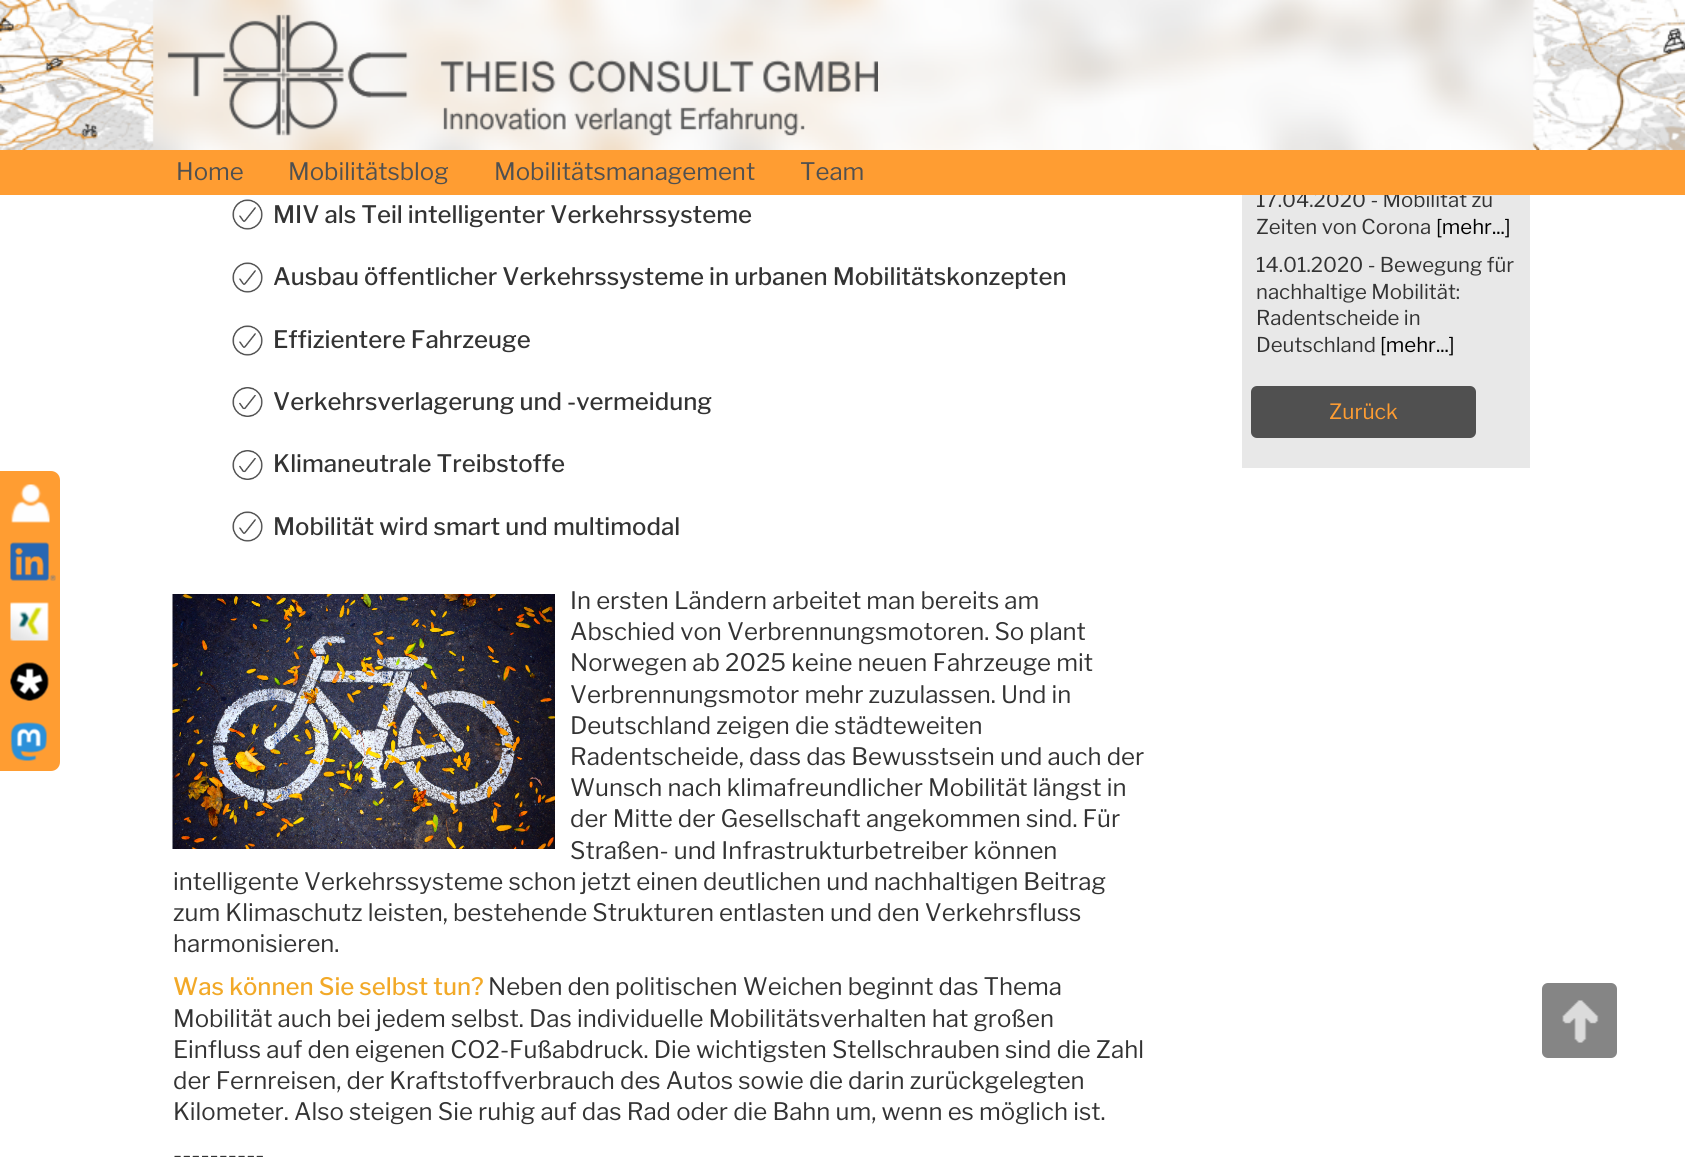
#include <cairo.h>
#include <math.h>
#include <stddef.h>

static cairo_t *c;
static void C(unsigned color){cairo_set_source_rgb(c, (color >> 16) / 255.0, (color >> 8 & 255) / 255.0, (color & 255) / 255.0);}
static void F(const char *family, double size, int italic, int bold){cairo_select_font_face(c, family, italic ? CAIRO_FONT_SLANT_ITALIC : CAIRO_FONT_SLANT_NORMAL,bold ? CAIRO_FONT_WEIGHT_BOLD : CAIRO_FONT_WEIGHT_NORMAL);cairo_set_font_size(c, size);}
static void T(double x, double y, const char *s){cairo_move_to(c, x, y);cairo_show_text(c, s);}
static void R(double x, double y, double w, double h){cairo_rectangle(c, x, y, w, h);cairo_fill(c);}
static void Q(double x, double y, double w, double h, double r){cairo_new_sub_path(c);cairo_arc(c, x + w - r, y + h - r, r, 0, M_PI / 2);cairo_arc(c, x + r, y + h - r, r, M_PI / 2, M_PI);cairo_arc(c, x + r, y + r, r, M_PI, 1.5 * M_PI);cairo_arc(c, x + w - r, y + r, r, 1.5 * M_PI, 2 * M_PI);cairo_close_path(c);}
static void I(const char *path, double x, double y, double w, double h){cairo_surface_t *image = cairo_image_surface_create_from_png(path);cairo_save(c);cairo_set_source_surface(c, image, x, y);cairo_rectangle(c, x, y, w, h);cairo_fill(c);cairo_restore(c);cairo_surface_destroy(image);}
int main(void) {
cairo_surface_t *surface = cairo_image_surface_create(CAIRO_FORMAT_RGB24, 1685, 1157);
c = cairo_create(surface);
cairo_font_options_t *options = cairo_font_options_create();
cairo_font_options_set_hint_metrics(options, CAIRO_HINT_METRICS_OFF);
cairo_font_options_set_hint_style(options, CAIRO_HINT_STYLE_NONE);
cairo_set_font_options(c, options);
cairo_set_miter_limit(c, 4);
C(0xffffff);
cairo_paint(c);
I("1.png",0,0,1685,150);
I("2.png",167,14,711,122);
C(0xe8e8e8);
R(1242,195,288,273);
F("Libre Franklin",20.4,0,0);
C(0x333333);
T(1256,207,"17.04.2020 - Mobilität zu");
C(0xff9d32);
R(0,150,1685,45);
F("Libre Franklin",24,0,0);
C(0x505050);
T(176,180,"Home");
T(288,180,"Mobilitätsblog");
T(494,180,"Mobilitätsmanagement");
T(800,180,"Team");
C(0xff9d32);
cairo_new_path(c);
cairo_move_to(c,0,471);
cairo_line_to(c,51,471);
cairo_curve_to(c,56,471,60,475,60,480);
cairo_line_to(c,60,762);
cairo_curve_to(c,60,767,56,771,51,771);
cairo_line_to(c,0,771);
cairo_close_path(c);
cairo_fill(c);
I("3.png",11,484,39,39);
I("4.png",10,542,46,39);
I("5.png",10,602,39,39);
I("6.png",10,662,39,39);
I("7.png",10,722,37,39);
I("8.png",232,199,31,31);
F("Libre Franklin Medium",24,0,0);
C(0x333333);
T(273,223,"MIV als Teil intelligenter Verkehrssysteme");
I("8.png",232,262,31,31);
T(273,285,"Ausbau öffentlicher Verkehrssysteme in urbanen Mobilitätskonzepten");
I("8.png",232,325,31,31);
T(273,348,"Effizientere Fahrzeuge");
I("9.png",232,387,31,30);
T(273,410,"Verkehrsverlagerung und -vermeidung");
I("9.png",232,450,31,30);
T(273,472,"Klimaneutrale Treibstoffe");
I("8.png",232,511,31,31);
T(273,535,"Mobilität wird smart und multimodal");
I("10.png",172,594,383,255);
F("Libre Franklin",24,0,0);
T(570,609,"In ersten Ländern arbeitet man bereits am");
T(570,640,"Abschied von Verbrennungsmotoren. So plant");
T(570,671,"Norwegen ab 2025 keine neuen Fahrzeuge mit");
T(570,703,"Verbrennungsmotor mehr zuzulassen. Und in");
T(570,734,"Deutschland zeigen die städteweiten");
T(570,765,"Radentscheide, dass das Bewusstsein und auch der");
T(570,796,"Wunsch nach klimafreundlicher Mobilität längst in");
T(570,827,"der Mitte der Gesellschaft angekommen sind. Für");
T(570,859,"Straßen- und Infrastrukturbetreiber können");
T(173,890,"intelligente Verkehrssysteme schon jetzt einen deutlichen und nachhaltigen Beitrag");
T(173,921,"zum Klimaschutz leisten, bestehende Strukturen entlasten und den Verkehrsfluss");
T(173,952,"harmonisieren.");
F("Libre Franklin Medium",24,0,0);
C(0xf2a928);
T(173,995,"Was können Sie selbst tun?");
F("Libre Franklin",24,0,0);
C(0x333333);
T(488,995,"Neben den politischen Weichen beginnt das Thema");
T(173,1027,"Mobilität auch bei jedem selbst. Das individuelle Mobilitätsverhalten hat großen");
T(173,1058,"Einfluss auf den eigenen CO2-Fußabdruck. Die wichtigsten Stellschrauben sind die Zahl");
T(173,1089,"der Fernreisen, der Kraftstoffverbrauch des Autos sowie die darin zurückgelegten");
T(173,1120,"Kilometer. Also steigen Sie ruhig auf das Rad oder die Bahn um, wenn es möglich ist.");
T(173,1163,"----------");
F("Libre Franklin",20.4,0,0);
T(1256,234,"Zeiten von Corona");
C(0x000000);
T(1436,234,"[mehr...]");
C(0x333333);
T(1256,272,"14.01.2020 - Bewegung für");
T(1256,299,"nachhaltige Mobilität:");
T(1256,325,"Radentscheide in");
T(1256,352,"Deutschland");
C(0x000000);
T(1380,352,"[mehr...]");
C(0x505050);
Q(1251,386,225,52,6);
cairo_fill(c);
F("Libre Franklin",21,0,0);
C(0xff9d32);
T(1329,419,"Zurück");
C(0x858585);
Q(1542,983,75,75,6);
cairo_fill(c);
I("11.png",1562,1000,37,43);
cairo_surface_write_to_png(surface, "o.png");
cairo_font_options_destroy(options);
cairo_destroy(c);
cairo_surface_destroy(surface);
return 0;
}
